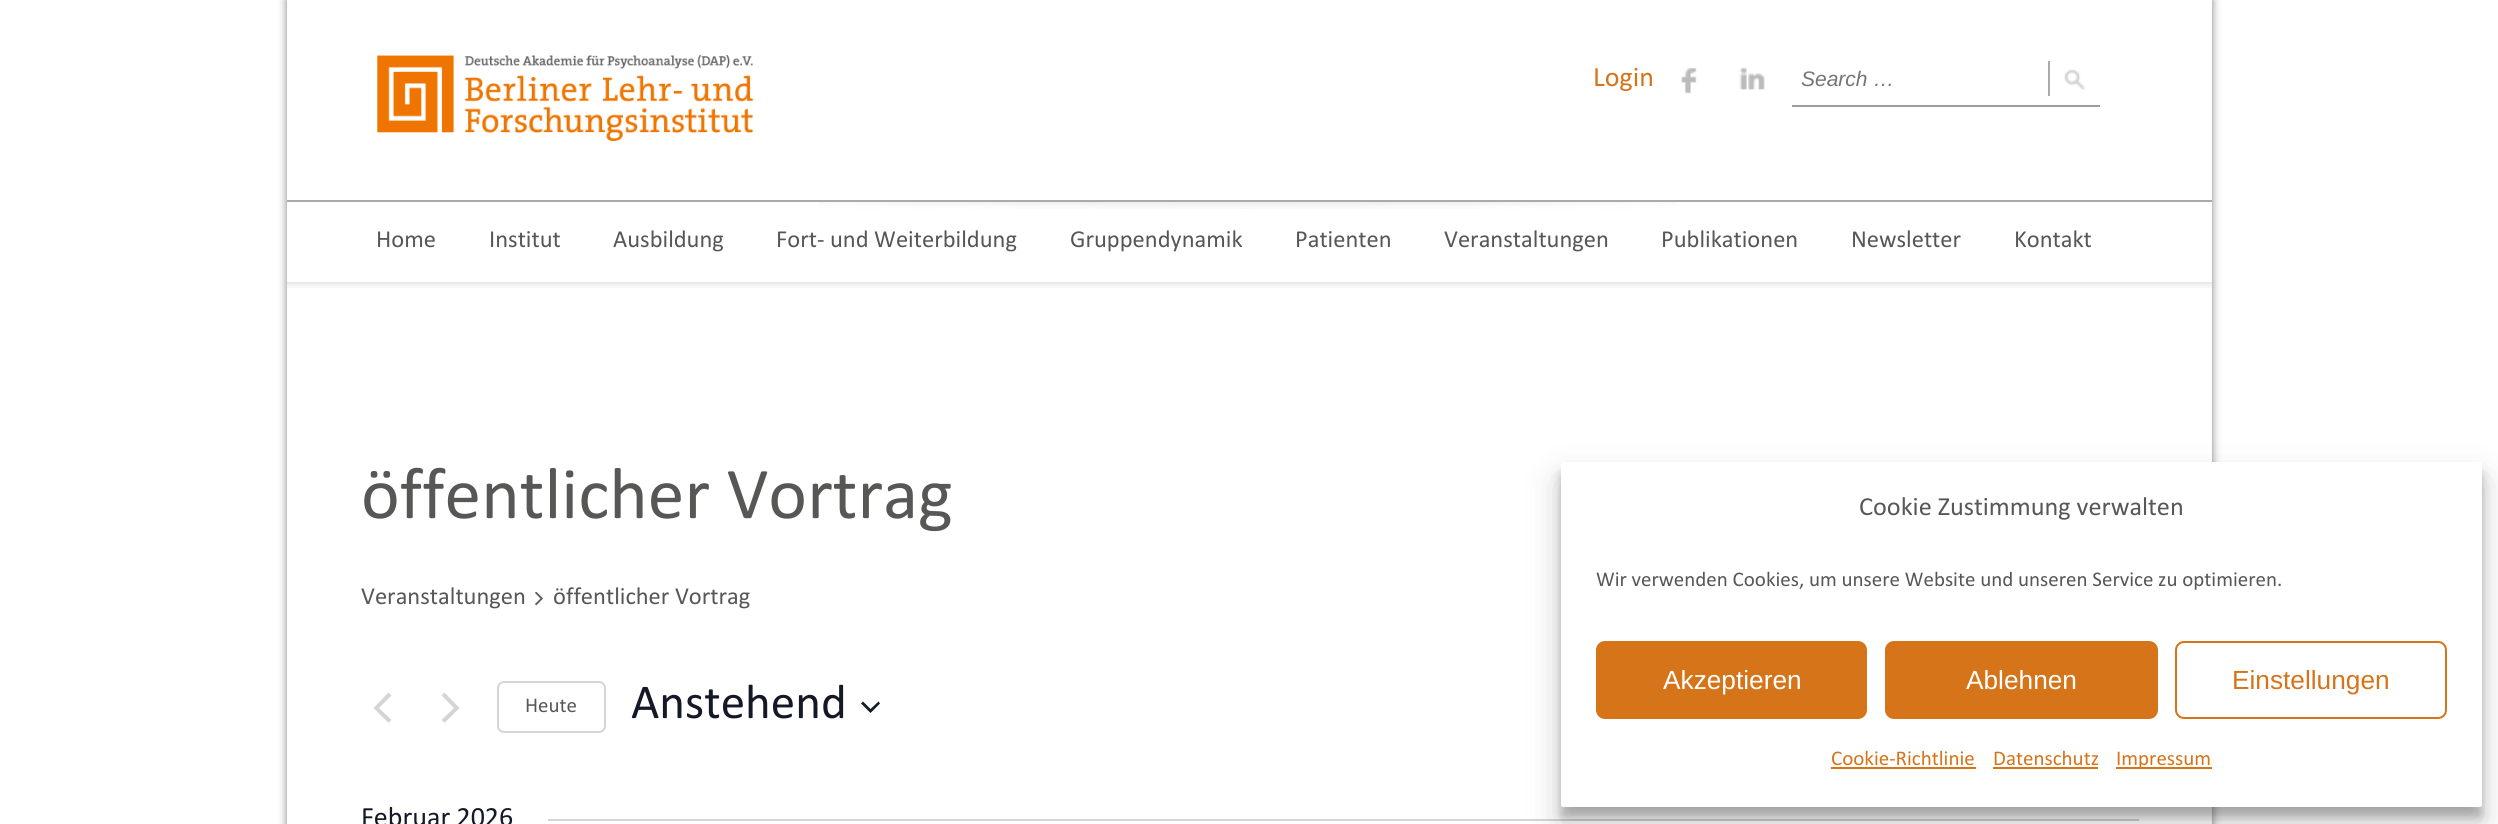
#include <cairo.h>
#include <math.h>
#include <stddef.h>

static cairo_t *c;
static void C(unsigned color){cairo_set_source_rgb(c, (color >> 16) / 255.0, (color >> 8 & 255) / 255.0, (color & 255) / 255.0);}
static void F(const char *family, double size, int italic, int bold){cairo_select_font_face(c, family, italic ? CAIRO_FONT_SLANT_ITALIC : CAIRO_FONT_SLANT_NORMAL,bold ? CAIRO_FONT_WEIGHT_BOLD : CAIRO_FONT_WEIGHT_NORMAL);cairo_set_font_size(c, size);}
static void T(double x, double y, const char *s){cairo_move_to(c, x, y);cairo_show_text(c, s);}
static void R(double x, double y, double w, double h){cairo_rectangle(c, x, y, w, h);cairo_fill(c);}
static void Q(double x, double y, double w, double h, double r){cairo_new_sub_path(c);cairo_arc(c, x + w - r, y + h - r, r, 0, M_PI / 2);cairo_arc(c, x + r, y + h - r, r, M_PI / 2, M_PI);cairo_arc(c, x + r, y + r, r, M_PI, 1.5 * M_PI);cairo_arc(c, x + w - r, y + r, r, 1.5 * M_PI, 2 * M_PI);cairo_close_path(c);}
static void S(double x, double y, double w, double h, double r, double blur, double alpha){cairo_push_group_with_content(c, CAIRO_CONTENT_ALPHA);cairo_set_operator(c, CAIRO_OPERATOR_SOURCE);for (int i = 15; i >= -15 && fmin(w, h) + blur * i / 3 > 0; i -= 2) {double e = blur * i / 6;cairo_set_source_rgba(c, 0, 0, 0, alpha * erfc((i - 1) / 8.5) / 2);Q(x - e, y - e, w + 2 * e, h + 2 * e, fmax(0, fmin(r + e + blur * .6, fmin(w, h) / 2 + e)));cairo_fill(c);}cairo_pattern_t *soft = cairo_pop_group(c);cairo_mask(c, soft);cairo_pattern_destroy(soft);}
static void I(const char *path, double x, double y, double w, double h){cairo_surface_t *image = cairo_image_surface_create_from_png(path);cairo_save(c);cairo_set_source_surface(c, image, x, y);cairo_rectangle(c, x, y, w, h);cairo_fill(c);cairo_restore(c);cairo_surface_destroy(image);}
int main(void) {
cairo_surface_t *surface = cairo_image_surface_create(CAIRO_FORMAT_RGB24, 2498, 824);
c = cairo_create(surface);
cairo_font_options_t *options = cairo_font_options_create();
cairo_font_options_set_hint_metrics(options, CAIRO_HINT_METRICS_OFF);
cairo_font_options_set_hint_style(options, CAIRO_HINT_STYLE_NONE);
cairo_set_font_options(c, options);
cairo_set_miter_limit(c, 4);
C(0xffffff);
cairo_paint(c);
cairo_save(c);
cairo_set_fill_rule(c,CAIRO_FILL_RULE_EVEN_ODD);
cairo_new_path(c);
cairo_move_to(c,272,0);
cairo_line_to(c,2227,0);
cairo_line_to(c,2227,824);
cairo_line_to(c,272,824);
cairo_close_path(c);
cairo_move_to(c,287,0);
cairo_line_to(c,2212,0);
cairo_line_to(c,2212,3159);
cairo_line_to(c,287,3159);
cairo_close_path(c);
cairo_clip(c);
C(0x000000);
S(287,0,1925,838,0,4.5,.5);
cairo_restore(c);
I("1.png",377,54,377,88);
F("Calibri",28,0,0);
C(0xd57419);
T(1593,86,"Login");
I("2.png",1681,68,16,26);
I("3.png",1739,67,26,23);
C(0x9c9d9e);
R(1792,105,308,2);
F("Liberation Sans",21,1,0);
C(0x757575);
T(1801,86,"Search …");
I("4.png",2064,69,21,21);
C(0xa9aaab);
R(2048,61,2,35);
I("5.png",819,202,857,7);
R(287,200,1925,2);
F("Calibri",24.5,0,0);
C(0x575756);
T(376,247,"Home");
T(489,247,"Institut");
T(613,247,"Ausbildung");
T(776,247,"Fort- und Weiterbildung");
T(1070,247,"Gruppendynamik");
T(1295,247,"Patienten");
T(1444,247,"Veranstaltungen");
T(1661,247,"Publikationen");
T(1851,247,"Newsletter");
T(2014,247,"Kontakt");
I("6.png",287,282,1925,6);
F("Calibri",73.5,0,0);
T(361,518,"öffentlicher Vortrag");
F("Calibri",24.5,0,0);
T(361,604,"Veranstaltungen");
I("7.png",535,592,8,14);
T(553,604,"öffentlicher Vortrag");
C(0xd5d5d5);
cairo_new_path(c);
cairo_move_to(c,391.5,720);
cairo_line_to(c,388.5,723);
cairo_line_to(c,373.5,708);
cairo_line_to(c,388.5,692.5);
cairo_line_to(c,391.5,695.5);
cairo_line_to(c,379,708);
cairo_close_path(c);
cairo_fill(c);
cairo_new_path(c);
cairo_move_to(c,441.5,695.5);
cairo_line_to(c,444.5,692.5);
cairo_line_to(c,459.5,708);
cairo_line_to(c,444.5,723);
cairo_line_to(c,441.5,720);
cairo_line_to(c,454,708);
cairo_close_path(c);
cairo_fill(c);
Q(498,682,107,50,6);
cairo_stroke(c);
F("Calibri",21,0,0);
C(0x575756);
T(525,712,"Heute");
F("Calibri",49,0,0);
C(0x141827);
T(631,718,"Anstehend");
cairo_set_fill_rule(c,CAIRO_FILL_RULE_EVEN_ODD);
cairo_new_path(c);
cairo_move_to(c,863,701.5);
cairo_line_to(c,870.5,709);
cairo_line_to(c,878.5,701.5);
cairo_line_to(c,880,703.5);
cairo_line_to(c,870.5,713);
cairo_line_to(c,861,703.5);
cairo_close_path(c);
cairo_fill(c);
F("Calibri",28,0,0);
T(361,826,"Februar 2026");
C(0xd5d5d5);
R(548,819,1591,2);
C(0x000000);
S(1561,473,921,344,2,5,.23);
S(1561,480,921,344,2,17.5,.19);
C(0xffffff);
Q(1561,462,921,345,2);
cairo_fill(c);
F("Calibri",26.25,0,0);
C(0x575756);
T(1859,515,"Cookie Zustimmung verwalten");
F("Calibri",21,0,0);
T(1596,586,"Wir verwenden Cookies, um unsere Website und unseren Service zu optimieren.");
C(0xd57419);
Q(1597,642,269,76,8);
cairo_fill_preserve(c);
cairo_stroke(c);
F("Liberation Sans",26.25,0,0);
C(0xffffff);
T(1663,689,"Akzeptieren");
C(0xd57419);
Q(1886,642,271,76,8);
cairo_fill_preserve(c);
cairo_stroke(c);
C(0xffffff);
T(1966,689,"Ablehnen");
Q(2176,642,270,76,8);
C(0xd57419);
cairo_stroke(c);
T(2232,689,"Einstellungen");
F("Calibri",21,0,0);
T(1831,765,"Cookie-Richtlinie");
R(1831,767,145,2);
T(1993,765,"Datenschutz");
R(1993,767,105,2);
R(2116,767,96,2);
T(2116,765,"Impressum");
cairo_surface_write_to_png(surface, "o.png");
cairo_font_options_destroy(options);
cairo_destroy(c);
cairo_surface_destroy(surface);
return 0;
}
